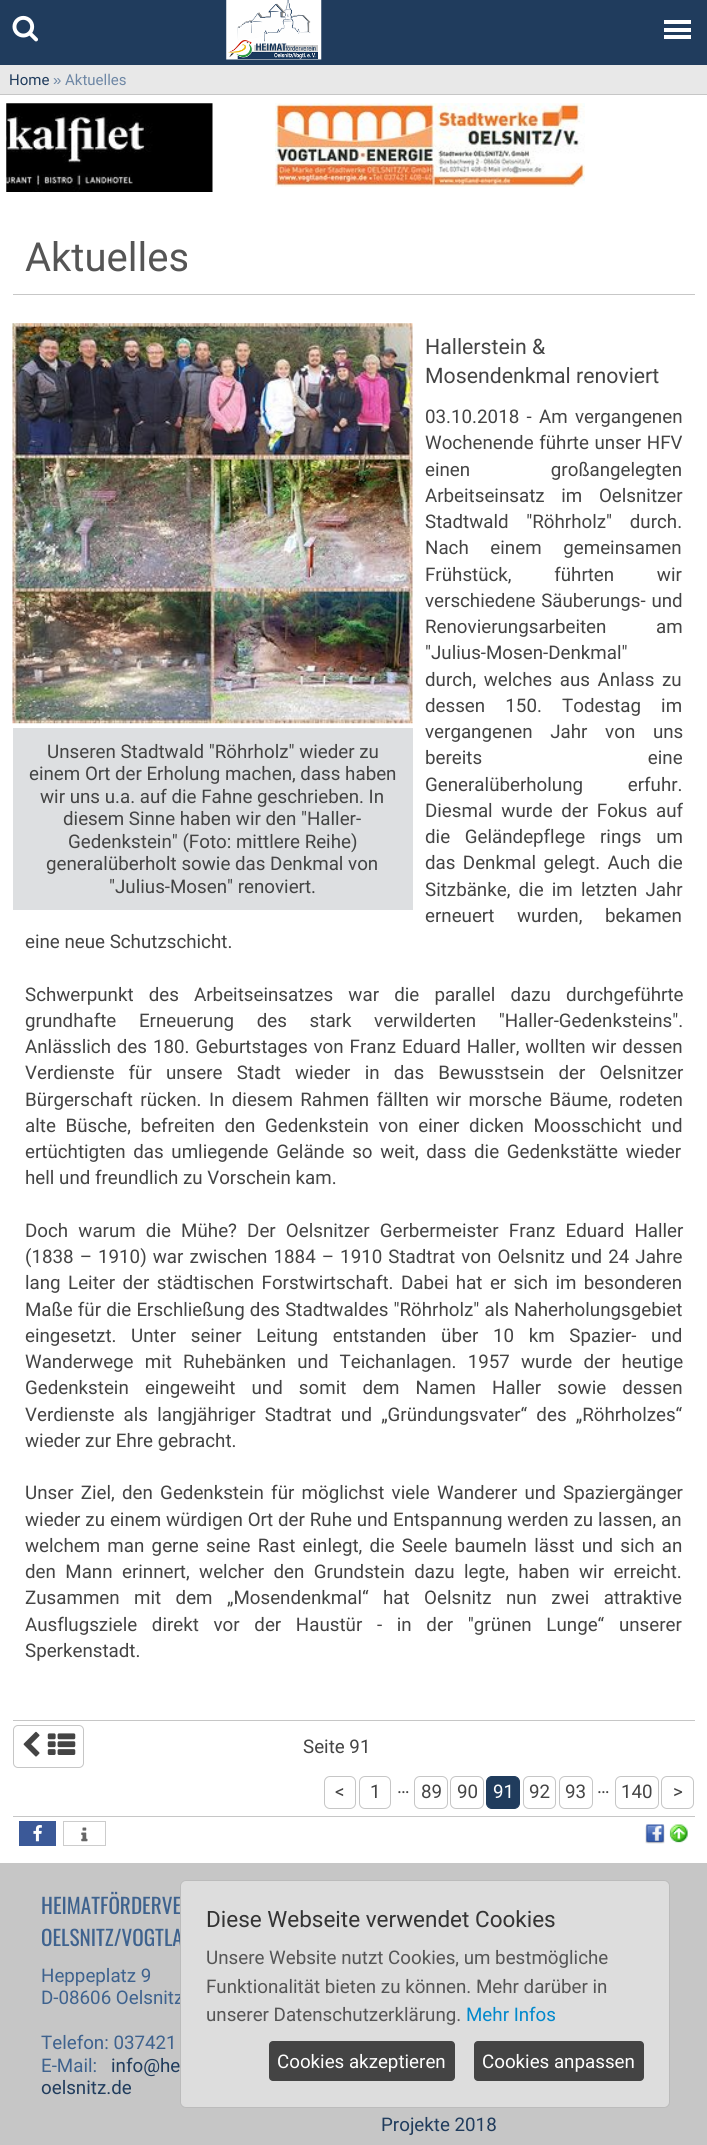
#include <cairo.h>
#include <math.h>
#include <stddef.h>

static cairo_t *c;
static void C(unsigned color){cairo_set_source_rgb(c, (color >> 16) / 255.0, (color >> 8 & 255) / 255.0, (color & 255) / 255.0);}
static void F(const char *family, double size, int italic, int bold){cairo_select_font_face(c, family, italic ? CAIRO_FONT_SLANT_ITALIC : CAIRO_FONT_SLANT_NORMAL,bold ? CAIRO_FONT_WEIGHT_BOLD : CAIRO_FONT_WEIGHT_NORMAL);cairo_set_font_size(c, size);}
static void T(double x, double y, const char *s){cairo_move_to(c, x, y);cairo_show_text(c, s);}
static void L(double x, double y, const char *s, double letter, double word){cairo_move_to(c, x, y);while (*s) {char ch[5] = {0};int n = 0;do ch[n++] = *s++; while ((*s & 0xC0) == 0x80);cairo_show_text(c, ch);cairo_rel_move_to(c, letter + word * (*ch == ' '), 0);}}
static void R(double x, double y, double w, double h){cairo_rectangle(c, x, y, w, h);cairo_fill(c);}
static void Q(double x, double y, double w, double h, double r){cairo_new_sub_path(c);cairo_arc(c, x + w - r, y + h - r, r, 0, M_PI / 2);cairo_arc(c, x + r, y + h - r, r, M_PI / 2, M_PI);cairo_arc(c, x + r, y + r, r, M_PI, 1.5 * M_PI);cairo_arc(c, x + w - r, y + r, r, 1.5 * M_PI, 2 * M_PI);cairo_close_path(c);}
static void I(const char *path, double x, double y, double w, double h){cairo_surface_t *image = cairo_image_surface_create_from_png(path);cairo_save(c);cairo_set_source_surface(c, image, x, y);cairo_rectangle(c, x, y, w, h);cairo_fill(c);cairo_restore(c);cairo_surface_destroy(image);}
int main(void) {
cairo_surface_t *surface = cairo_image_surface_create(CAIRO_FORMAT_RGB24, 707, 2145);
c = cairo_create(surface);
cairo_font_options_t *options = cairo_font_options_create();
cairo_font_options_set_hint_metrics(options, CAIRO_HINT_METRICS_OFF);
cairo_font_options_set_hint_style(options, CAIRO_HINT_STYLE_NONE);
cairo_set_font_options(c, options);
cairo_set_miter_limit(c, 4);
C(0x203c5d);
cairo_paint(c);
I("1.png",12,15,26,27);
I("2.png",226,0,96,60);
C(0xffffff);
R(664,20,27,4);
R(664,28,27,4);
R(664,35,27,4);
C(0xe8e8e8);
R(0,65,707,29);
C(0xc6c6c6);
R(0,94,707,1);
F("Roboto",15,0,0);
C(0x203c5d);
T(9,85,"Home");
F("Liberation Sans",15,0,0);
C(0x6e87a5);
T(53,85,"»");
F("Roboto",15,0,0);
T(65,85,"Aktuelles");
C(0xffffff);
R(0,95,707,1768);
I("3.png",6,103,207,89);
I("4.png",275,103,310,84);
C(0xc7c7c7);
R(13,294,682,1);
F("Roboto",40,0,0);
C(0x555555);
T(25,271,"Aktuelles");
F("Roboto",21.25,0,0);
C(0x444444);
T(425,354,"Hallerstein &");
T(425,383,"Mosendenkmal renoviert");
F("Roboto",18.75,0,0);
L(425,423,"03.10.2018 -",0,2.6);
L(539,423,"Am vergangenen",0,2.6);
L(425,449,"Wochenende führte unser HFV",0,1);
L(425,476,"einen großangelegten",0,76);
L(425,502,"Arbeitseinsatz im Oelsnitzer",0,12);
L(425,528,"Stadtwald \"Röhrholz\" durch.",0,13);
L(425,554,"Nach einem gemeinsamen",0,17);
L(425,581,"Frühstück, führten wir",0,38);
L(425,607,"verschiedene Säuberungs- und",0,1);
L(425,633,"Renovierungsarbeiten am",0,45);
T(425,659,"\"Julius-Mosen-Denkmal\"");
L(425,686,"durch, welches aus Anlass zu",0,3);
L(425,712,"dessen 150. Todestag im",0,15.5);
L(425,738,"vergangenen Jahr von uns",0,13);
L(425,764,"bereits eine",0,161);
L(425,791,"Generalüberholung erfuhr.",0,40);
L(425,817,"Diesmal wurde der Fokus auf",0,4);
L(425,843,"die Geländepflege",0,10);
L(600,843,"rings um",0,10);
L(425,869,"das Denkmal gelegt. Auch die",0,2.75);
L(425,896,"Sitzbänke, die im letzten Jahr",0,3.5);
L(425,922,"erneuert wurden, bekamen",0,18);
T(25,948,"eine neue Schutzschicht.");
L(25,1001,"Schwerpunkt des Arbeitseinsatzes war die parallel dazu durchgeführte",0,10.5);
L(25,1027,"grundhafte Erneuerung des stark verwilderten \"Haller-Gedenksteins\".",0,18);
L(25,1053,"Anlässlich des 180. Geburtstages von Franz Eduard Haller, wollten wir dessen",0,1.25);
L(25,1079,"Verdienste für unsere Stadt wieder in das Bewusstsein der Oelsnitzer",0,9.5);
L(25,1106,"Bürgerschaft rücken. In diesem Rahmen fällten wir morsche Bäume, rodeten",0,2.75);
L(25,1132,"alte Büsche, befreiten den Gedenkstein von einer dicken Moosschicht und",0,5);
L(25,1158,"ertüchtigten das umliegende Gelände so weit, dass die Gedenkstätte wieder",0,3);
T(25,1184,"hell und freundlich zu Vorschein kam.");
L(25,1237,"Doch warum die Mühe? Der Oelsnitzer Gerbermeister Franz Eduard Haller",0,5.5);
L(25,1263,"(1838 – 1910) war zwischen 1884 – 1910 Stadtrat von Oelsnitz und 24 Jahre",0,1.4);
L(25,1289,"lang Leiter der städtischen Forstwirtschaft. Dabei hat er sich im besonderen",0,2.75);
L(25,1316,"Maße für die Erschließung des Stadtwaldes \"Röhrholz\" als Naherholungsgebiet",0,.5);
L(25,1342,"eingesetzt. Unter seiner Leitung entstanden über 10 km Spazier- und",0,10);
L(25,1368,"Wanderwege mit Ruhebänken und Teichanlagen. 1957 wurde der heutige",0,6.5);
L(25,1394,"Gedenkstein eingeweiht und somit dem Namen Haller sowie dessen",0,11.5);
L(25,1421,"Verdienste als langjähriger Stadtrat und „Gründungsvater“ des „Röhrholzes“",0,4.5);
T(25,1447,"wieder zur Ehre gebracht.");
L(25,1499,"Unser Ziel, den Gedenkstein für möglichst viele Wanderer und Spaziergänger",0,2.6);
L(25,1526,"wieder zu einem würdigen Ort der Ruhe und Entspannung werden zu lassen, an",0,.25);
L(25,1552,"welchem man gerne seine Rast einlegt, die Seele baumeln lässt und sich an",0,2.6);
L(25,1578,"den Mann erinnert, welcher den Grundstein dazu legte, haben wir erreicht.",0,4.75);
L(25,1604,"Zusammen mit dem „Mosendenkmal“ hat Oelsnitz nun zwei attraktive",0,9.75);
L(25,1631,"Ausflugsziele direkt vor der Haustür - in der \"grünen Lunge“ unserer",0,10);
T(25,1657,"Sperkenstadt.");
I("5.png",12,323,401,401);
C(0xdddfe1);
R(13,728,400,182);
C(0x444444);
T(47,758,"Unseren Stadtwald \"Röhrholz\" wieder zu");
T(29,780,"einem Ort der Erholung machen, dass haben");
T(40,803,"wir uns u.a. auf die Fahne geschrieben. In");
T(63,825,"diesem Sinne haben wir den \"Haller-");
T(68,848,"Gedenkstein\" (Foto: mittlere Reihe)");
T(46,870,"generalüberholt sowie das Denkmal von");
T(109,893,"\"Julius-Mosen\" renoviert.");
C(0xc6c6c6);
R(13,1720,682,1);
Q(13.5,1725.5,70,42,4.5);
cairo_set_line_width(c,1);
cairo_stroke(c);
I("6.png",23,1731,53,26);
C(0x444444);
T(303,1753,"Seite 91");
Q(324.5,1776.5,31,32,5.5);
C(0xc6c6c6);
cairo_stroke(c);
C(0x444444);
T(335,1798,"<");
Q(359.5,1776.5,31,32,5.5);
C(0xc6c6c6);
cairo_stroke(c);
C(0x444444);
T(370,1798,"1");
T(397,1793,"…");
Q(414.5,1776.5,33,32,5.5);
C(0xc6c6c6);
cairo_stroke(c);
C(0x444444);
T(421,1798,"89");
Q(450.5,1776.5,33,32,5.5);
C(0xc6c6c6);
cairo_stroke(c);
C(0x444444);
T(457,1798,"90");
C(0x203c5d);
Q(486.5,1776.5,33,32,5.5);
cairo_fill_preserve(c);
cairo_stroke(c);
C(0xffffff);
T(493,1798,"91");
Q(523.5,1776.5,32,32,5.5);
C(0xc6c6c6);
cairo_stroke(c);
C(0x444444);
T(529,1798,"92");
Q(559.5,1776.5,33,32,5.5);
C(0xc6c6c6);
cairo_stroke(c);
C(0x444444);
T(565,1798,"93");
T(597,1793,"…");
Q(615.5,1776.5,43,32,5.5);
C(0xc6c6c6);
cairo_stroke(c);
C(0x444444);
T(621,1798,"140");
Q(661.5,1776.5,32,32,5.5);
C(0xc6c6c6);
cairo_stroke(c);
C(0x444444);
T(673,1798,">");
C(0xc6c6c6);
R(13,1816,682,1);
C(0x3b5998);
R(19,1821,37,25);
I("7.png",33,1825,9,17);
cairo_rectangle(c,63.5,1821.5,42,24);
C(0xcccccc);
cairo_stroke(c);
I("8.png",81,1827,7,15);
I("9.png",645,1824,20,20);
I("10.png",669,1824,19,19);
C(0xc6c6c6);
R(0,1863,707,282);
F("Oswald",21.25,0,0);
C(0x3e628e);
T(41,1914,"HEIMATFÖRDERVE");
T(41,1946,"OELSNITZ/VOGTLA");
F("Roboto",18.75,0,0);
T(41,1982,"Heppeplatz 9");
T(41,2004,"D-08606 Oelsnitz");
T(41,2049,"Telefon: 037421");
T(41,2072,"E-Mail:");
C(0x203c5d);
T(111,2072,"info@he");
T(41,2094,"oelsnitz.de");
T(381,2131,"Projekte 2018");
C(0xdddddd);
Q(180.5,1880.5,489,227,5.5);
cairo_fill_preserve(c);
C(0xbbbbbb);
cairo_stroke(c);
F("Roboto",22.5,0,0);
C(0x333333);
T(206,1927,"Diese Webseite verwendet Cookies");
F("Roboto",18.75,0,0);
C(0x555555);
T(206,1964,"Unsere Website nutzt Cookies, um bestmögliche");
T(206,1993,"Funktionalität bieten zu können. Mehr darüber in");
T(206,2021,"unserer Datenschutzerklärung.");
C(0x0088cc);
T(466,2021,"Mehr Infos");
C(0x444444);
Q(269,2041,186,40,4);
cairo_fill(c);
C(0xffffff);
T(277,2068,"Cookies akzeptieren");
C(0x444444);
Q(474,2041,170,40,4);
cairo_fill(c);
C(0xffffff);
T(482,2068,"Cookies anpassen");
cairo_surface_write_to_png(surface, "o.png");
cairo_font_options_destroy(options);
cairo_destroy(c);
cairo_surface_destroy(surface);
return 0;
}
